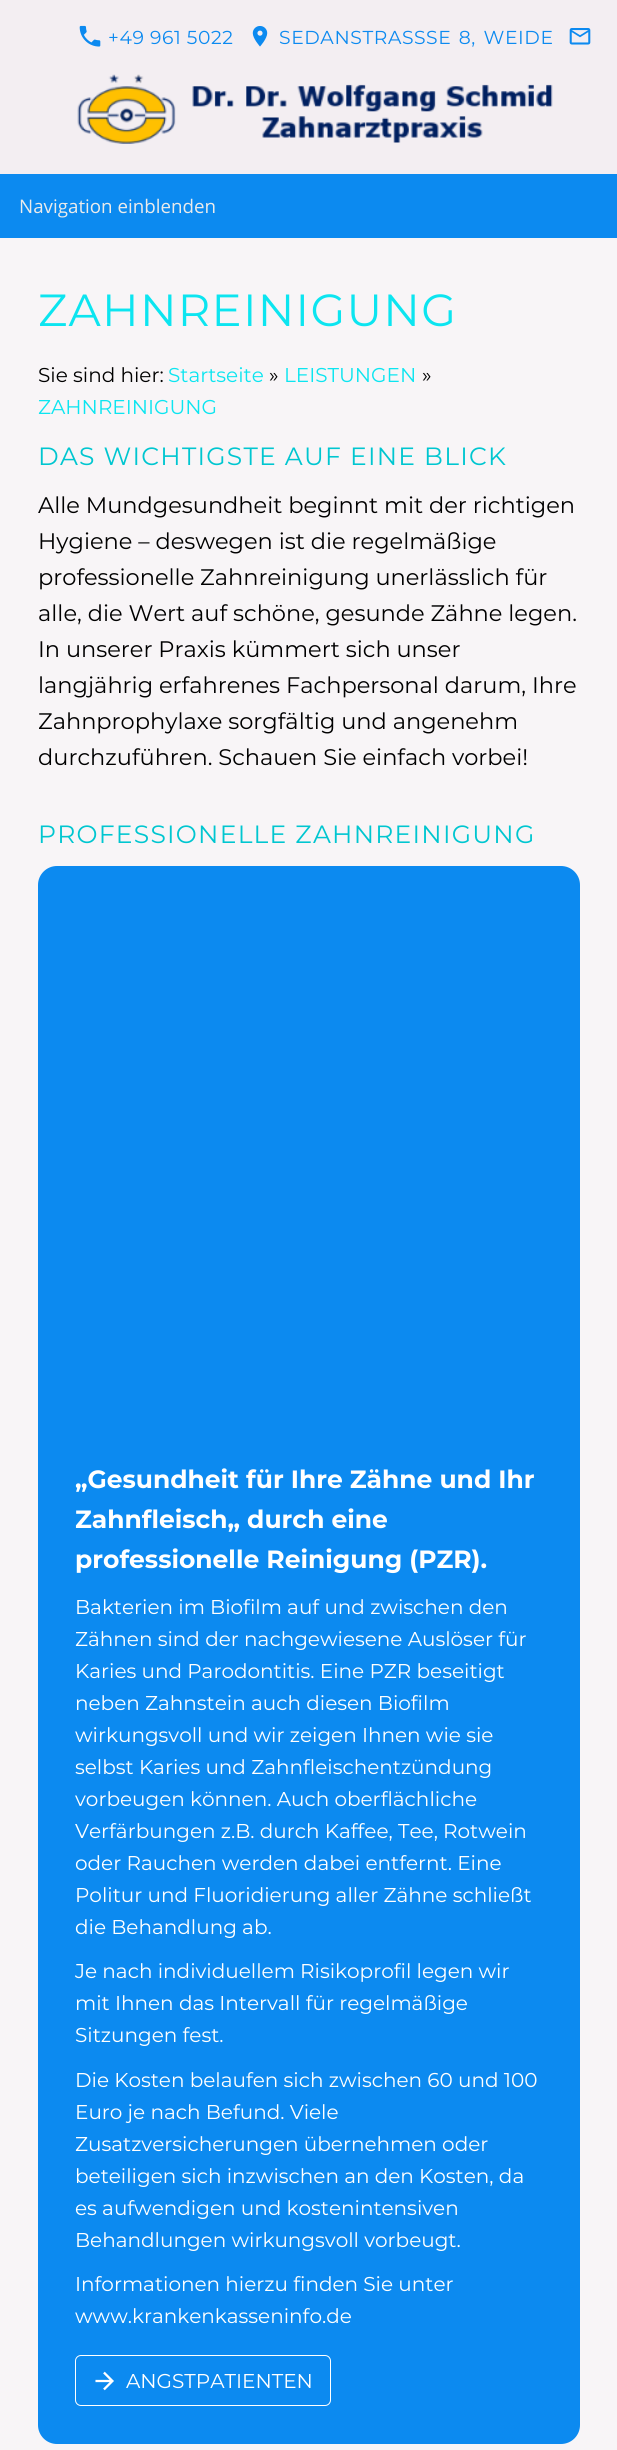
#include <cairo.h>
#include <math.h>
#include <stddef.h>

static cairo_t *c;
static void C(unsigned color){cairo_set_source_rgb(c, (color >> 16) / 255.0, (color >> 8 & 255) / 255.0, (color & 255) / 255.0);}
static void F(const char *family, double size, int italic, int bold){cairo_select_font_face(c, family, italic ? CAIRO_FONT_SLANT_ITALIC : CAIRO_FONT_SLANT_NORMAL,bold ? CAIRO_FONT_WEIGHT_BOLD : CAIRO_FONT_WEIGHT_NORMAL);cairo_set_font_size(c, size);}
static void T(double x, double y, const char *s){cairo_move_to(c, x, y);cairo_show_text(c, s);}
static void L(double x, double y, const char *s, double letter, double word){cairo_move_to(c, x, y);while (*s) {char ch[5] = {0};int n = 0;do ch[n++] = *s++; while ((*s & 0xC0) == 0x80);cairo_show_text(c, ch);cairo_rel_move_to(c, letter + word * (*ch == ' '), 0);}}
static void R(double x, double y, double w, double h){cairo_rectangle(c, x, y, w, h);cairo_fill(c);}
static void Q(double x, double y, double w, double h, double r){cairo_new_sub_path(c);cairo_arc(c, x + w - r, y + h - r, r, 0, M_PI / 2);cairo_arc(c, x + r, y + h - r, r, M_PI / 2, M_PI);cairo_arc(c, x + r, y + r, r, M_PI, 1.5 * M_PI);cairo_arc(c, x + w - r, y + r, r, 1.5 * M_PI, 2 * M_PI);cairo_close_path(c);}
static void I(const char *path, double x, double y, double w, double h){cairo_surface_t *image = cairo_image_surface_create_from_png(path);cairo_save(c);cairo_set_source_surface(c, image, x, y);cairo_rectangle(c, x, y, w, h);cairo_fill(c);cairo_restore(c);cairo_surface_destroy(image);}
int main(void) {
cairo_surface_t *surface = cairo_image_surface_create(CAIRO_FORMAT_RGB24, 617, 2450);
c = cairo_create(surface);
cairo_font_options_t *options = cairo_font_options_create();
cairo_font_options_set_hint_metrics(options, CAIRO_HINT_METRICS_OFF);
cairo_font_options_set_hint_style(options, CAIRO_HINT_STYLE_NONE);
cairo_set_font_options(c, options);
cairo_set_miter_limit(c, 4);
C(0xf3eef2);
cairo_paint(c);
I("1.png",79,25,22,22);
F("Montserrat",18.75,0,0);
C(0x0c8af0);
L(108,44,"+49 961 5022",.6,0);
I("2.png",252,26,16,21);
L(279,44,"SEDANSTRASS",.6,0);
L(426,44,"SE 8, WEIDE",.6,2);
I("3.png",569,28,22,17);
I("4.png",77,74,476,70);
R(0,174,617,64);
F("Open Sans",18.75,0,0);
C(0xebebeb);
T(19,213,"Navigation einblenden");
C(0xf8f5f7);
R(0,238,617,2212);
F("Montserrat",45,0,0);
C(0x0ce5f0);
L(38,326,"ZAHNREINIGUNG",1.25,0);
F("Montserrat",20,0,0);
C(0x000000);
T(38,382,"Sie sind hier:");
C(0x0ce5f0);
T(168,382,"Startseite");
C(0x000000);
T(269,382,"»");
C(0x0ce5f0);
T(284,382,"LEISTUNGEN");
C(0x000000);
T(422,382,"»");
C(0x0ce5f0);
T(38,414,"ZAHNREINIGUNG");
F("Montserrat",25,0,0);
C(0x00c6d0);
L(38,465,"DAS WICHTIGSTE AUF EINE BLICK",1.25,0);
F("Montserrat",22.5,0,0);
C(0x000000);
T(38,513,"Alle Mundgesundheit beginnt mit der richtigen");
T(38,549,"Hygiene – deswegen ist die regelmäßige");
T(38,585,"professionelle Zahnreinigung unerlässlich für");
T(38,621,"alle, die Wert auf schöne, gesunde Zähne legen.");
T(38,657,"In unserer Praxis kümmert sich unser");
T(38,693,"langjährig erfahrenes Fachpersonal darum, Ihre");
T(38,729,"Zahnprophylaxe sorgfältig und angenehm");
T(38,765,"durchzuführen. Schauen Sie einfach vorbei!");
F("Montserrat",25,0,0);
C(0x00c6d0);
L(38,843,"PROFESSIONELLE ZAHNREINIGUNG",1.25,0);
C(0x0c8af0);
Q(38,866,542,1578,19);
cairo_fill(c);
F("Montserrat",25,0,1);
C(0xffffff);
T(75,1488,"„Gesundheit für Ihre Zähne und Ihr");
T(75,1528,"Zahnfleisch„ durch eine");
T(75,1568,"professionelle Reinigung (PZR).");
F("Montserrat",20,0,0);
T(75,1614,"Bakterien im Biofilm auf und zwischen den");
T(75,1646,"Zähnen sind der nachgewiesene Auslöser für");
T(75,1678,"Karies und Parodontitis. Eine PZR beseitigt");
T(75,1710,"neben Zahnstein auch diesen Biofilm");
T(75,1742,"wirkungsvoll und wir zeigen Ihnen wie sie");
T(75,1774,"selbst Karies und Zahnfleischentzündung");
T(75,1806,"vorbeugen können. Auch oberflächliche");
T(75,1838,"Verfärbungen z.B. durch Kaffee, Tee, Rotwein");
T(75,1870,"oder Rauchen werden dabei entfernt. Eine");
T(75,1902,"Politur und Fluoridierung aller Zähne schließt");
T(75,1934,"die Behandlung ab.");
T(75,1978,"Je nach individuellem Risikoprofil legen wir");
T(75,2010,"mit Ihnen das Intervall für regelmäßige");
T(75,2042,"Sitzungen fest.");
T(75,2087,"Die Kosten belaufen sich zwischen 60 und 100");
T(75,2119,"Euro je nach Befund. Viele");
T(75,2151,"Zusatzversicherungen übernehmen oder");
T(75,2183,"beteiligen sich inzwischen an den Kosten, da");
T(75,2215,"es aufwendigen und kostenintensiven");
T(75,2247,"Behandlungen wirkungsvoll vorbeugt.");
T(75,2291,"Informationen hierzu finden Sie unter");
T(75,2323,"www.krankenkasseninfo.de");
Q(75.5,2355.5,255,50,5.5);
cairo_set_line_width(c,1);
cairo_stroke(c);
I("5.png",95,2371,19,20);
T(126,2388,"ANGSTPATIENTEN");
cairo_surface_write_to_png(surface, "o.png");
cairo_font_options_destroy(options);
cairo_destroy(c);
cairo_surface_destroy(surface);
return 0;
}
